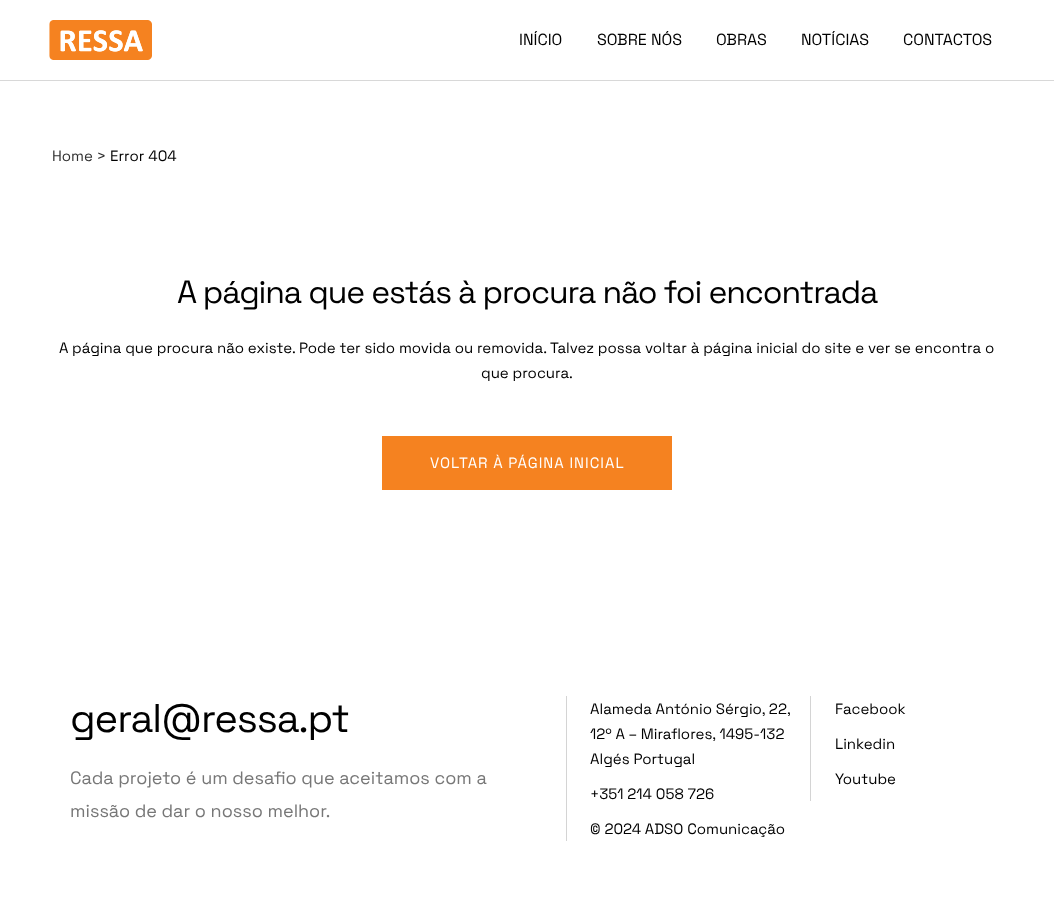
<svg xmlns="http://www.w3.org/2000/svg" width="1054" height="908">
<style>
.a{font:16px Space Grotesk;fill:#000}
.b{font:15px Space Grotesk;fill:#303030}
.c{font:15px Space Grotesk;fill:#000}
.d{font:32px Space Grotesk;letter-spacing:-1.1px;fill:#000}
.e{font:15px Space Grotesk;letter-spacing:1px;fill:#fff}
.f{font:40px Space Grotesk;letter-spacing:-1.1px;fill:#000}
.g{font:18px Space Grotesk;fill:#777}
</style>
<rect width="100%" height="100%" fill="#fff"/>
<path fill="#d8d8d8" d="M0 80h1054v1H0z"/>
<image href="1.png" x="49" y="20" width="103" height="40"/>
<path fill="#f58220" d="M382 436h290v54H382z"/>
<path fill="#d4d4d4" d="M566 696h1v145H566z"/>
<path fill="#d4d4d4" d="M810 696h1v105H810z"/>
<text class="a" x="519" y="45">INÍCIO</text>
<text class="a" x="597" y="45">SOBRE NÓS</text>
<text class="a" x="716" y="45">OBRAS</text>
<text class="a" x="801" y="45">NOTÍCIAS</text>
<text class="a" x="903" y="45">CONTACTOS</text>
<text class="b" x="52" y="161">Home &gt;</text>
<text class="c" x="110" y="161">Error 404</text>
<text class="d" x="177" y="303">A página que estás à procura não foi encontrada</text>
<text class="c" x="59" y="353">A página que procura não existe. Pode ter sido movida ou removida. Talvez possa voltar à página inicial do site e ver se encontra o</text>
<text class="c" x="481" y="378">que procura.</text>
<text class="e" x="430" y="468">VOLTAR À PÁGINA INICIAL</text>
<text class="f" x="70" y="732">geral@ressa.pt</text>
<text class="g" x="70" y="784">Cada projeto é um desafio que aceitamos com a</text>
<text class="g" x="70" y="817">missão de dar o nosso melhor.</text>
<text class="c" x="590" y="714">Alameda António Sérgio, 22,</text>
<text class="c" x="590" y="739">12º A – Miraflores, 1495-132</text>
<text class="c" x="590" y="764">Algés Portugal</text>
<text class="c" x="590" y="799">+351 214 058 726</text>
<text class="c" x="590" y="834">© 2024 ADSO Comunicação</text>
<text class="c" x="835" y="714">Facebook</text>
<text class="c" x="835" y="749">Linkedin</text>
<text class="c" x="835" y="784">Youtube</text>
</svg>
